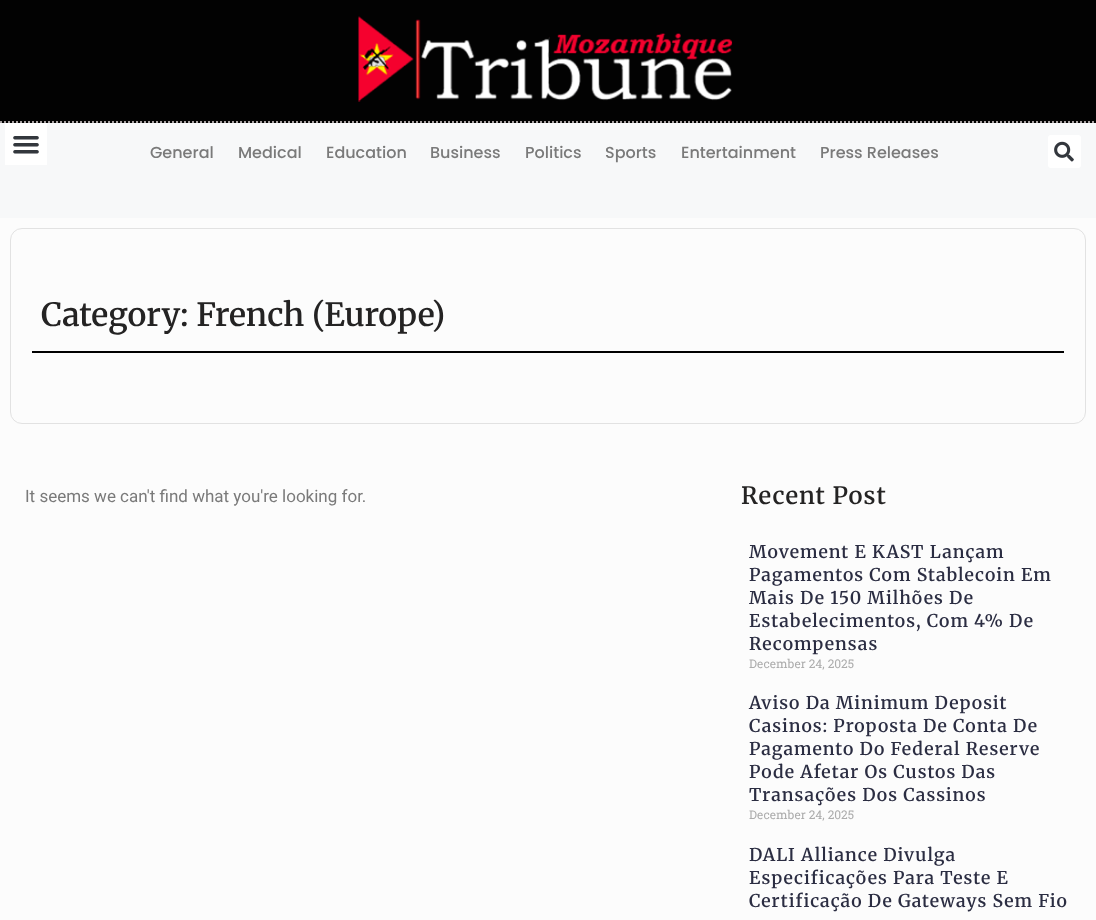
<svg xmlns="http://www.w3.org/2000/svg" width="1096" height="920">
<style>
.a{font:500 16px Poppins;fill:#7a7a7a}
.b{font:600 32px Merriweather;fill:#242323}
.c{font:17px Roboto;fill:#7a7a7a}
.d{font:600 23.75px Merriweather;letter-spacing:1px;fill:#242323}
.e{font:600 17.6px Merriweather;letter-spacing:1px;fill:#2b2d42}
.f{font:12px Roboto Slab;fill:#adadad}
</style>
<rect width="100%" height="100%" fill="#f7f8f9"/>
<path fill="#020202" d="M0 0h1096v123H0z"/>
<path fill="none" stroke="#a7a1a1" stroke-width="2" stroke-dasharray="2 2" d="M0 122h1096"/>
<image href="1.png" x="358" y="16" width="375" height="86"/>
<path fill="#fff" d="M5 123h42v42H5z"/>
<image href="2.png" x="13" y="136" width="26" height="18"/>
<rect fill="#fff" x="1048" y="135" width="33" height="33" rx="3"/>
<image href="3.png" x="1054" y="141" width="20" height="21"/>
<path fill="#fcfcfc" d="M0 218h1096v702H0z"/>
<rect fill="none" stroke="#e2e2e2" x="10.5" y="228.5" width="1075" height="195" rx="11.5"/>
<path fill="#000" d="M32 351h1032v2H32z"/>
<text class="a" x="150" y="158">General</text>
<text class="a" x="238" y="158">Medical</text>
<text class="a" x="326" y="158">Education</text>
<text class="a" x="430" y="158">Business</text>
<text class="a" x="525" y="158">Politics</text>
<text class="a" x="605" y="158">Sports</text>
<text class="a" x="681" y="158">Entertainment</text>
<text class="a" x="820" y="158">Press Releases</text>
<text class="b" x="41" y="326">Category: French (Europe)</text>
<text class="c" x="25" y="502">It seems we can't find what you're looking for.</text>
<text class="d" x="741" y="504">Recent Post</text>
<text class="e" x="749" y="558">Movement E KAST Lançam</text>
<text class="e" x="749" y="581">Pagamentos Com Stablecoin Em</text>
<text class="e" x="749" y="604">Mais De 150 Milhões De</text>
<text class="e" x="749" y="627">Estabelecimentos, Com 4% De</text>
<text class="e" x="749" y="650">Recompensas</text>
<text class="f" x="749" y="668">December 24, 2025</text>
<text class="e" x="749" y="709">Aviso Da Minimum Deposit</text>
<text class="e" x="749" y="732">Casinos: Proposta De Conta De</text>
<text class="e" x="749" y="755">Pagamento Do Federal Reserve</text>
<text class="e" x="749" y="778">Pode Afetar Os Custos Das</text>
<text class="e" x="749" y="801">Transações Dos Cassinos</text>
<text class="f" x="749" y="819">December 24, 2025</text>
<text class="e" x="749" y="861">DALI Alliance Divulga</text>
<text class="e" x="749" y="884">Especificações Para Teste E</text>
<text class="e" x="749" y="907">Certificação De Gateways Sem Fio</text>
</svg>
